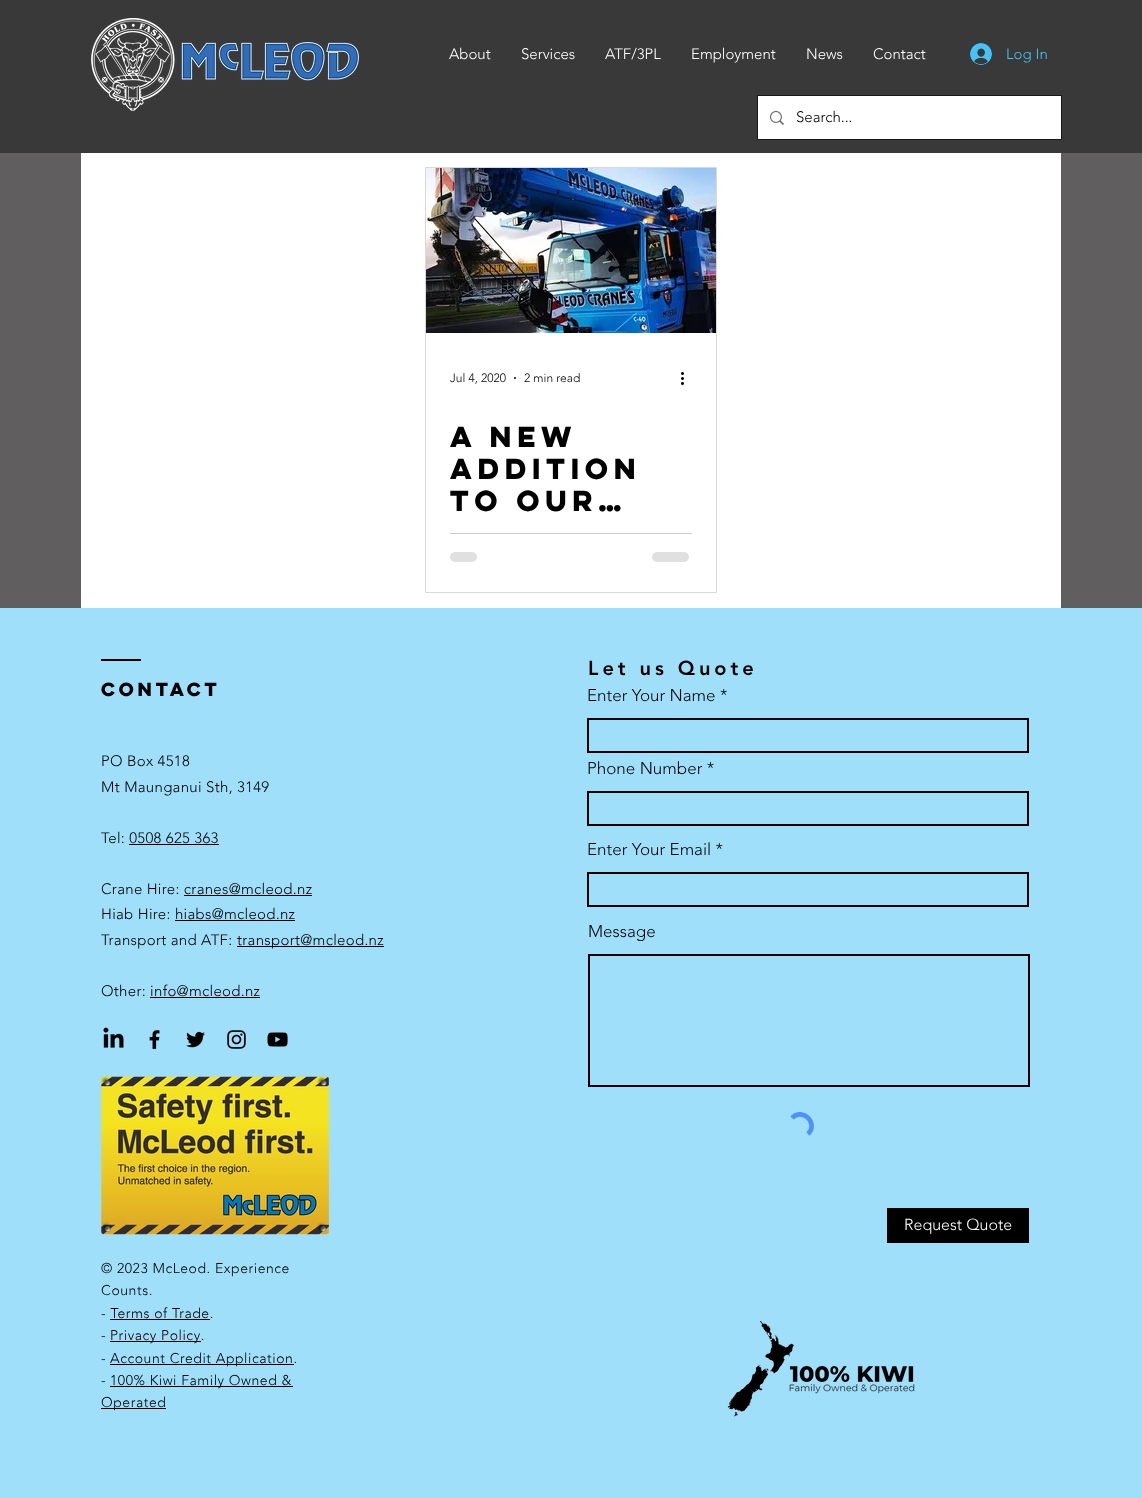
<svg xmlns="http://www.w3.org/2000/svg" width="1142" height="1498">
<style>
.a{font:300 15px 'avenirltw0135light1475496';fill:#fff}
.b{font:300 15px 'avenirltw0135light1475496';fill:#46c2f7}
.c{font:300 15px 'avenirltw0135light1475496';fill:#000}
.d{font:300 12px 'avenirltw0135light1475496';fill:#000}
.e{font:bold 26px 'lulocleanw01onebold';fill:#000}
.f{font:900 20px 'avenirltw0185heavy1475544';letter-spacing:4px;fill:#000}
.g{font:300 17px 'avenirltw0135light1475496';fill:#000}
.h{font:300 16px 'avenirltw0135light1475496';fill:#fff}
.i{font:bold 17px 'lulocleanw01onebold';fill:#000}
.j{font:300 15px 'avenirltw0135light1475496';letter-spacing:0.3px;fill:#000}
.k{font:300 14px 'avenirltw0135light1475496';letter-spacing:0.55px;fill:#000}
</style>
<rect width="100%" height="100%" fill="#605e5e"/>
<path fill="#383938" d="M0 0h1142v153H0z"/>
<image href="1.png" x="91" y="18" width="268" height="93"/>
<image href="2.png" x="970" y="43" width="22" height="22"/>
<path fill="none" stroke="#161716" d="M757.5 95.5h304v44H757.5z"/>
<path fill="#fff" d="M758 96h303v43H758z"/>
<image href="3.png" x="770" y="111" width="14" height="14"/>
<path fill="#fff" d="M81 153h980v455H81z"/>
<path fill="none" stroke="#d9d9d9" d="M425.5 167.5h291v425H425.5z"/>
<image href="4.png" x="426" y="168" width="290" height="165"/>
<circle fill="#000" cx="515" cy="378" r="1"/>
<image href="5.png" x="681" y="372" width="3" height="13"/>
<path fill="#ccc" d="M450 533h242v1H450z"/>
<rect fill="#e0e0e0" x="450" y="552" width="27" height="10" rx="5"/>
<rect fill="#e0e0e0" x="652" y="552" width="37" height="10" rx="5"/>
<path fill="#a0dffa" d="M0 608h1142v890H0z"/>
<path fill="#000" d="M101 659h40v2H101z"/>
<path fill="none" stroke="#000" stroke-width="2" d="M588 719h440v33H588z"/>
<path fill="none" stroke="#000" stroke-width="2" d="M588 792h440v33H588z"/>
<path fill="none" stroke="#000" stroke-width="2" d="M588 873h440v33H588z"/>
<path fill="none" stroke="#000" stroke-width="2" d="M589 955h440v131H589z"/>
<path fill="none" stroke="#4d90fe" stroke-width="4.6" d="M792 1118c10.5-11 27 5.5 16 16"/>
<path fill="#000" d="M887 1208h142v35H887z"/>
<image href="6.png" x="727" y="1321" width="188" height="96"/>
<path fill="#000" d="M129 844h90v1H129z"/>
<path fill="#000" d="M184 895h128v1H184z"/>
<path fill="#000" d="M175 920h120v1H175z"/>
<path fill="#000" d="M237 946h147v1H237z"/>
<path fill="#000" d="M150 997h110v1H150z"/>
<image href="7.png" x="103" y="1027" width="21" height="21"/>
<image href="8.png" x="149" y="1030" width="11" height="20"/>
<image href="9.png" x="186" y="1031" width="19" height="17"/>
<image href="10.png" x="227" y="1030" width="19" height="19"/>
<image href="11.png" x="267" y="1032" width="21" height="15"/>
<image href="12.png" x="101" y="1076" width="228" height="159"/>
<path fill="#000" d="M110 1319h100v1H110z"/>
<path fill="#000" d="M110 1341h91v1H110z"/>
<path fill="#000" d="M110 1364h184v1H110z"/>
<path fill="#000" d="M110 1386h183v1H110z"/>
<path fill="#000" d="M101 1408h65v1H101z"/>
<text class="a" x="449" y="59">About</text>
<text class="a" x="521" y="59">Services</text>
<text class="a" x="605" y="59">ATF/3PL</text>
<text class="a" x="691" y="59">Employment</text>
<text class="a" x="806" y="59">News</text>
<text class="a" x="873" y="59">Contact</text>
<text class="b" x="1006" y="59">Log In</text>
<text class="c" x="796" y="122">Search...</text>
<text class="d" x="450" y="382">Jul 4, 2020</text>
<text class="d" x="524" y="382">2 min read</text>
<text class="e" x="450" y="447">A New</text>
<text class="e" x="450" y="479">Addition</text>
<text class="e" x="450" y="511">to Our…</text>
<text class="f" x="588" y="675">Let us Quote</text>
<text class="g" x="587" y="701">Enter Your Name *</text>
<text class="g" x="587" y="774">Phone Number *</text>
<text class="g" x="587" y="855">Enter Your Email *</text>
<text class="g" x="588" y="937">Message</text>
<text class="h" x="904" y="1230">Request Quote</text>
<text class="i" x="101" y="696">Contact</text>
<text class="j" x="101" y="766">PO Box 4518</text>
<text class="j" x="101" y="792">Mt Maunganui Sth, 3149</text>
<text class="j" x="101" y="843">Tel: 0508 625 363</text>
<text class="j" x="101" y="894">Crane Hire: cranes@mcleod.nz</text>
<text class="j" x="101" y="919">Hiab Hire: hiabs@mcleod.nz</text>
<text class="j" x="101" y="945">Transport and ATF:</text>
<text class="j" x="237" y="945">transport@mcleod.nz</text>
<text class="j" x="101" y="996">Other: info@mcleod.nz</text>
<text class="k" x="101" y="1273">© 2023 McLeod. Experience</text>
<text class="k" x="101" y="1295">Counts.</text>
<text class="k" x="101" y="1318">- Terms of Trade.</text>
<text class="k" x="101" y="1340">-</text>
<text class="k" x="110" y="1340">Privacy Policy.</text>
<text class="k" x="101" y="1363">-</text>
<text class="k" x="110" y="1363">Account Credit Application.</text>
<text class="k" x="101" y="1385">-</text>
<text class="k" x="110" y="1385">100% Kiwi Family Owned &amp;</text>
<text class="k" x="101" y="1407">Operated</text>
</svg>
